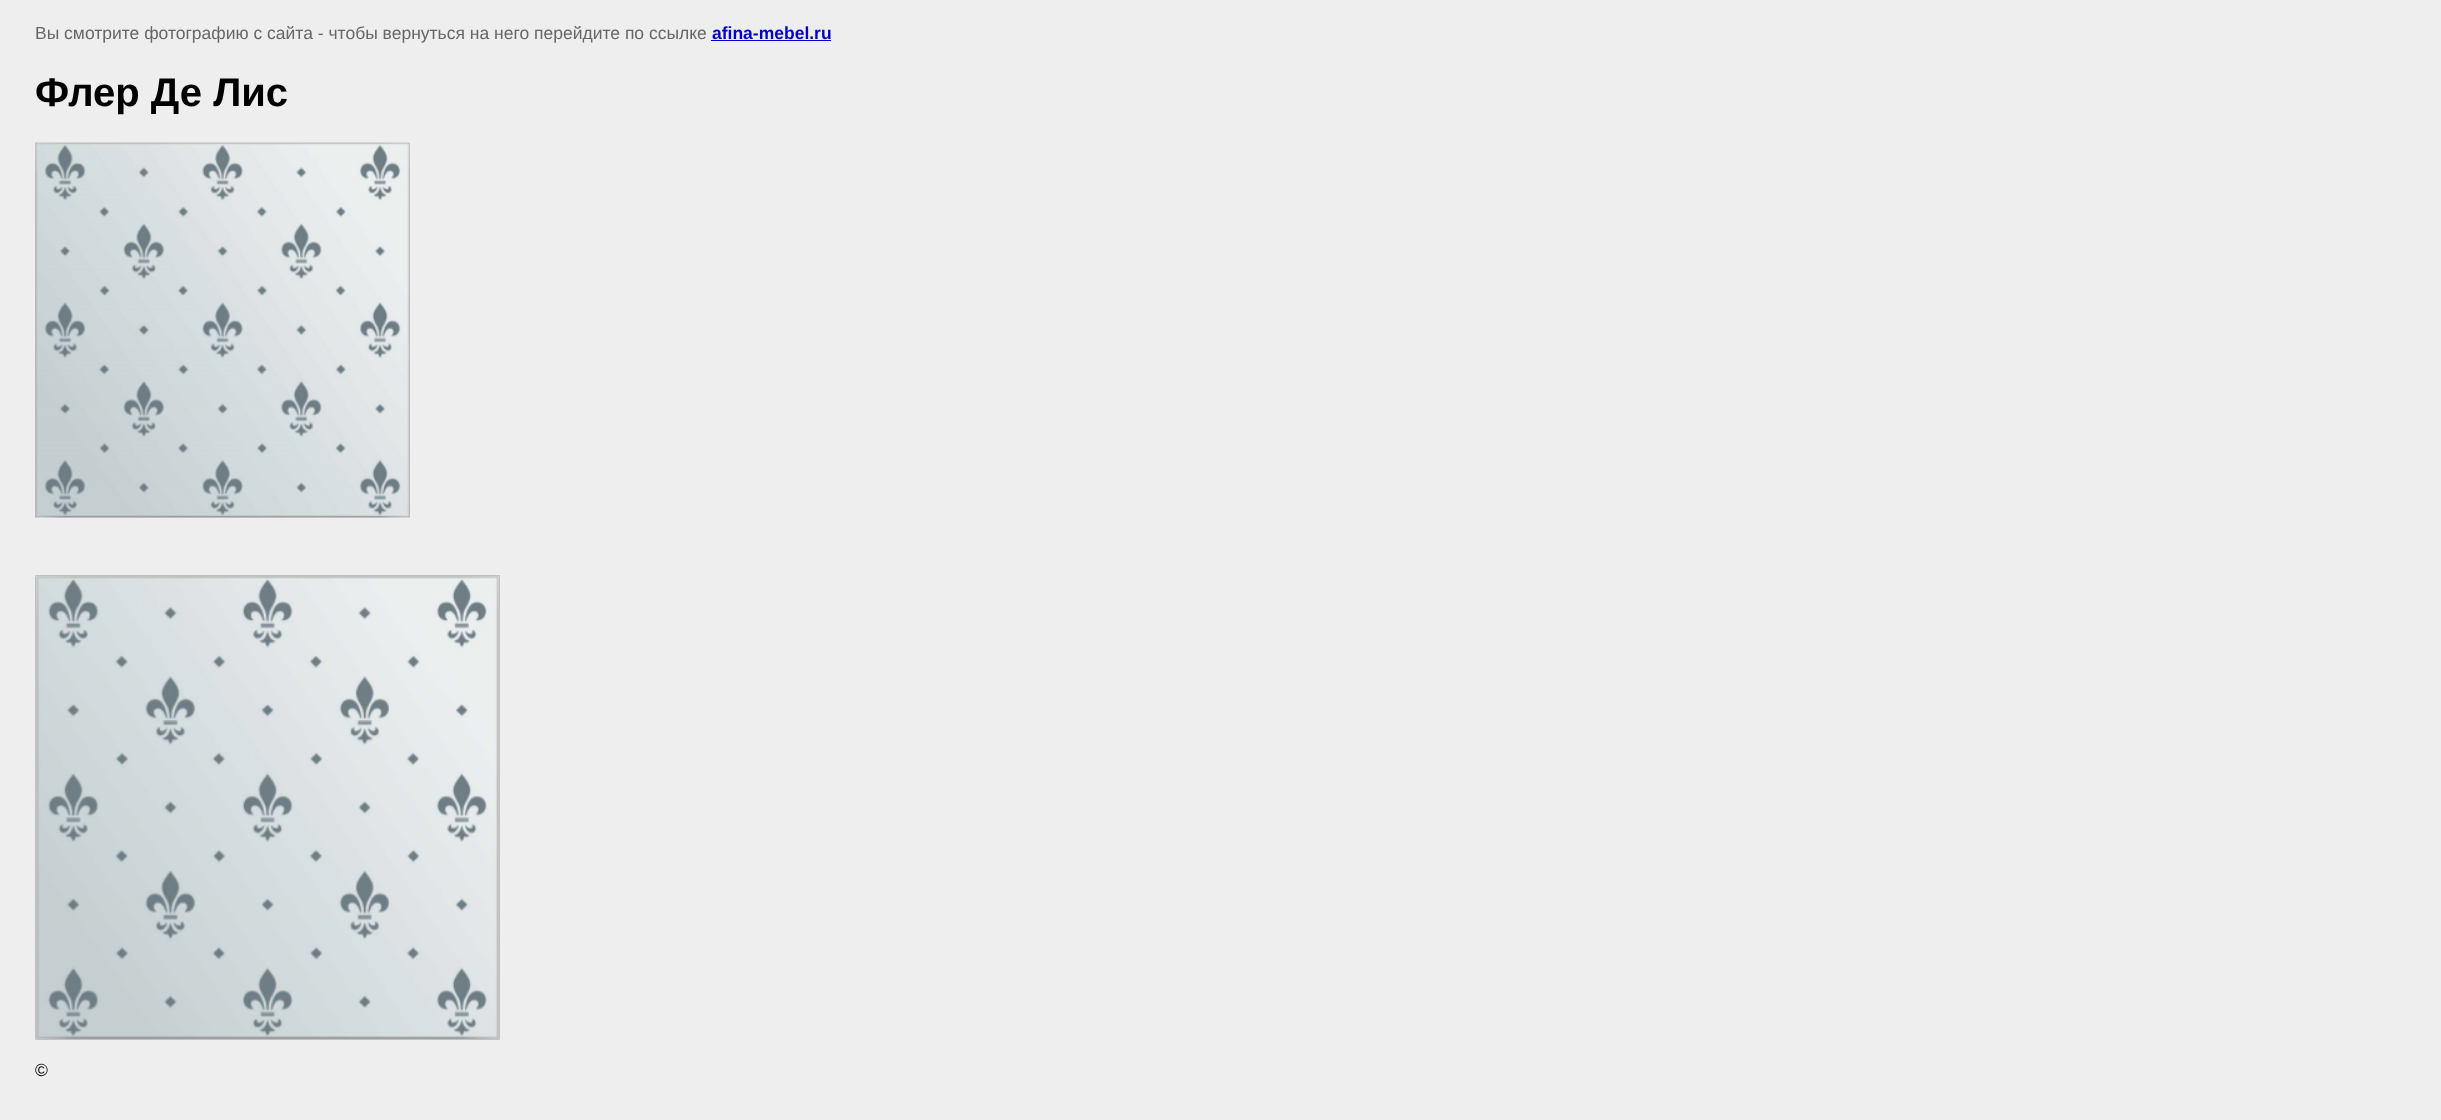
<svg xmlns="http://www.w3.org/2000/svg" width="2441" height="1120">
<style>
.a{font:17.5px Liberation Sans;fill:#666}
.b{font:bold 17.5px Liberation Sans;fill:#00c}
.c{font:bold 40px Liberation Sans;fill:#000}
.d{font:17.5px Liberation Sans;fill:#000}
</style>
<rect width="100%" height="100%" fill="#eee"/>
<path fill="#00c" d="M711 40h120v1H711z"/>
<image href="1.png" x="35" y="142" width="375" height="376"/>
<path fill="none" stroke="#c0c0c0" d="M35.5 575.5h464v464H35.5z"/>
<image href="2.png" x="36" y="576" width="463" height="463"/>
<text class="a" x="35" y="39">Вы смотрите фотографию с сайта - чтобы вернуться на него перейдите по ссылке</text>
<text class="b" x="712" y="39">afina-mebel.ru</text>
<text class="c" x="35" y="106">Флер Де Лис</text>
<text class="d" x="35" y="1076">©</text>
</svg>
